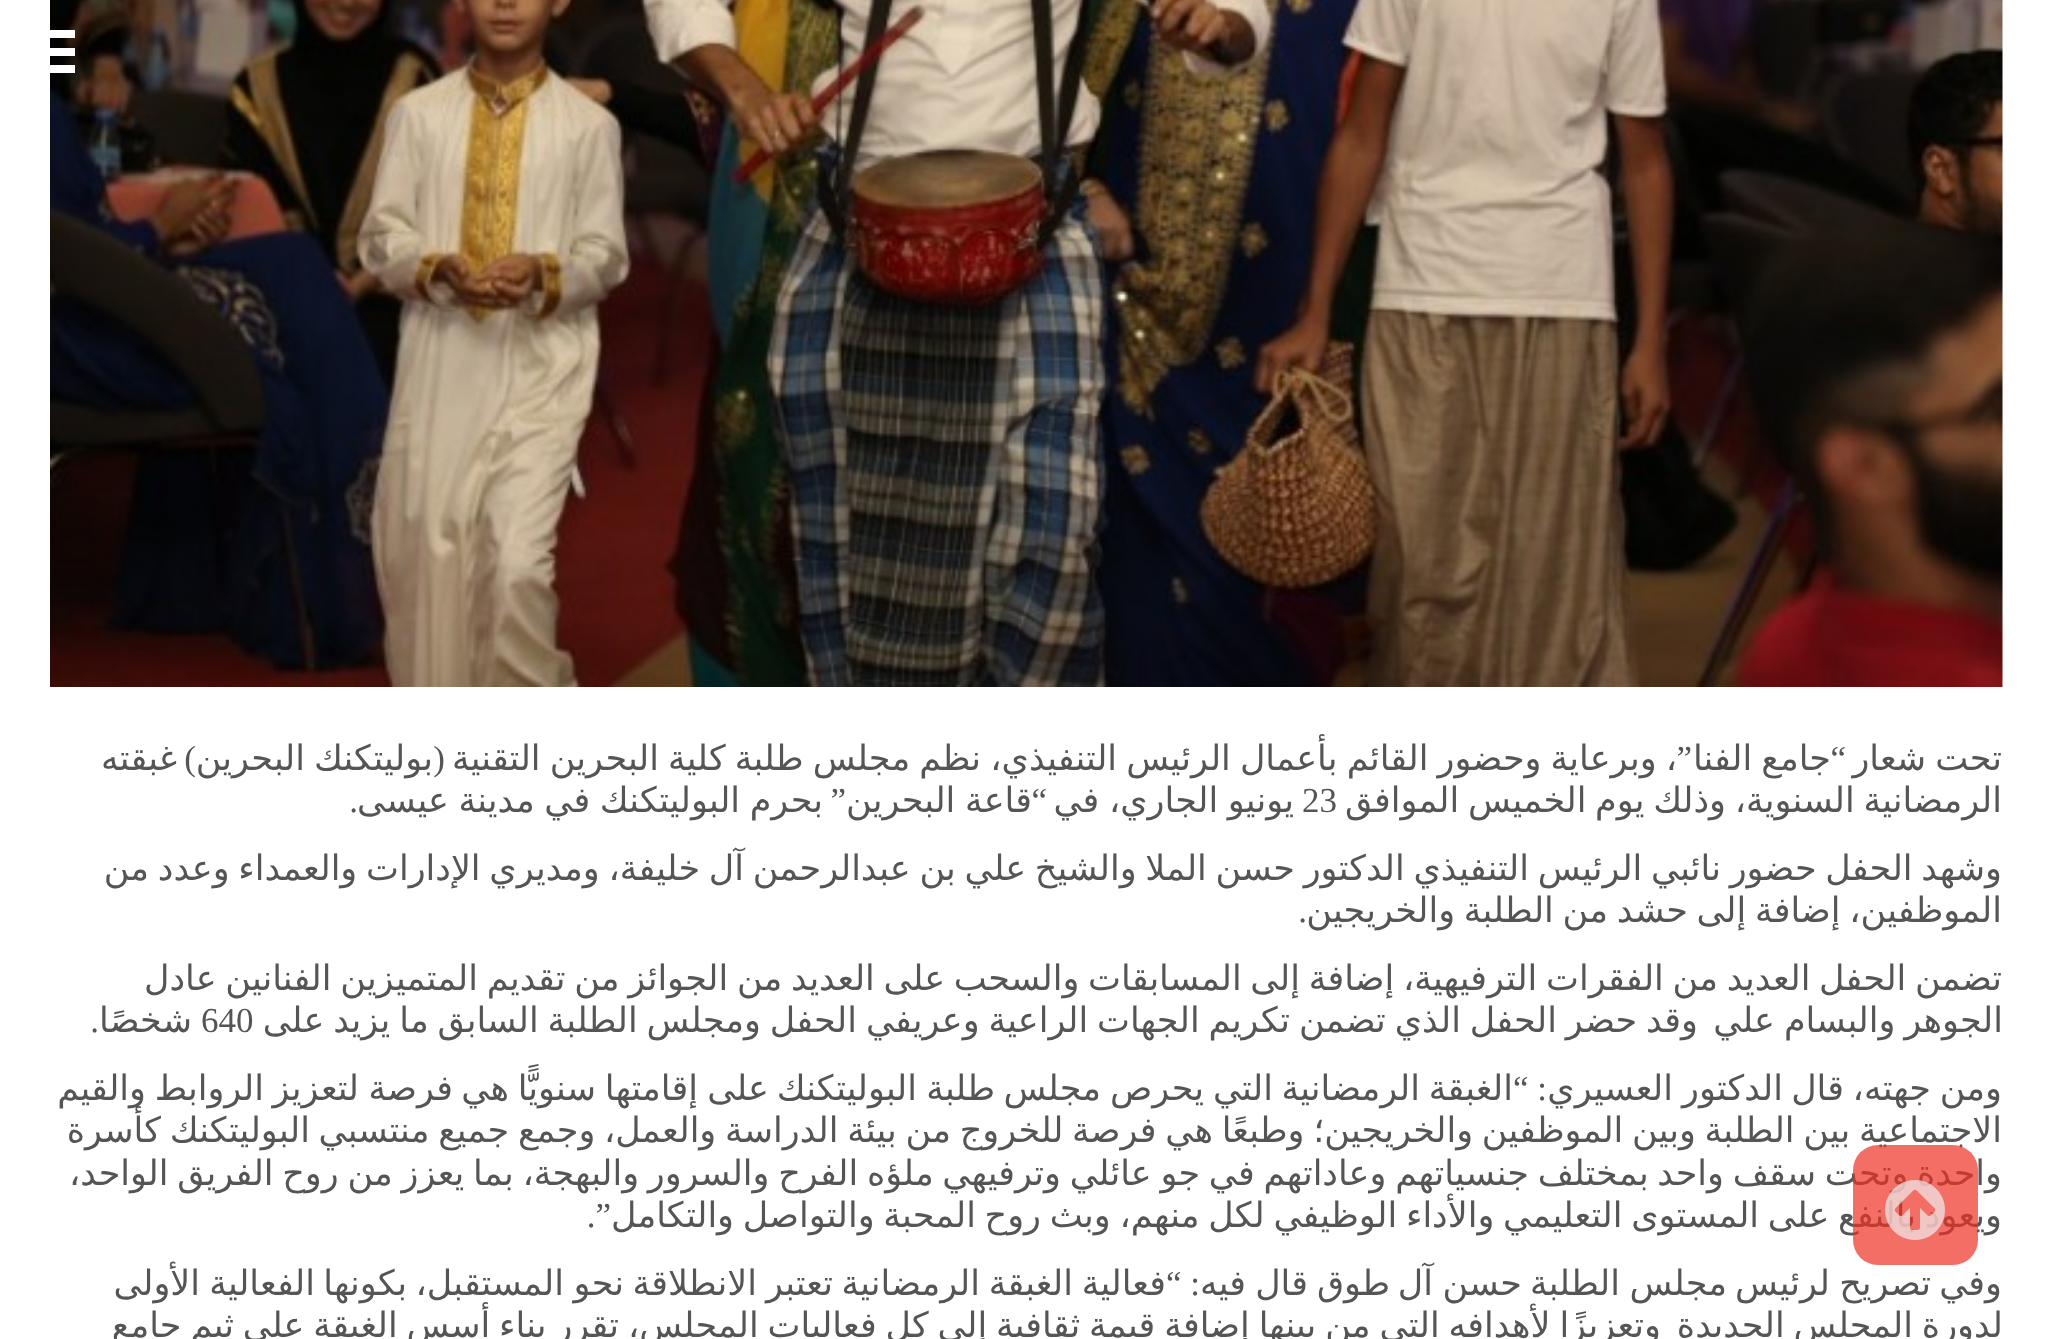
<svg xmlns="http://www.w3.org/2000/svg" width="2052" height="1339">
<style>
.a{font:35px DejaVu Sans;direction:rtl;fill:#565556}
.b{font:35px Liberation Serif;direction:rtl;fill:#565556}
.c{font:35px Liberation Serif;fill:#565556}
</style>
<rect width="100%" height="100%" fill="#fff"/>
<image href="1.png" x="50" y="0" width="1953" height="687"/>
<path fill="#fff" d="M50 30h25v8H50z"/>
<path fill="#fff" d="M50 48h25v8H50z"/>
<path fill="#fff" d="M50 65h25v8H50z"/>
<text class="a" x="2002" y="770" word-spacing="-2">تحت شعار</text>
<text class="b" x="1846" y="770">“</text>
<text class="a" x="1831" y="770" word-spacing="-2">جامع الفنا</text>
<text class="b" x="1692" y="770">”</text>
<text class="a" x="1677" y="770" word-spacing="-2">، وبرعاية وحضور القائم بأعمال الرئيس التنفيذي، نظم مجلس طلبة كلية البحرين التقنية</text>
<text class="b" x="445" y="770">(</text>
<text class="a" x="433" y="770" word-spacing="-2">بوليتكنك البحرين</text>
<text class="b" x="196" y="770">)</text>
<text class="a" x="177" y="770">غبقته</text>
<text class="a" x="2002" y="812" word-spacing="-2.4">الرمضانية السنوية، وذلك يوم الخميس الموافق</text>
<text class="c" x="1302" y="812">23</text>
<text class="a" x="1294" y="812" word-spacing="-1.5">يونيو الجاري، في</text>
<text class="b" x="1047" y="812">“</text>
<text class="a" x="1032" y="812" word-spacing="-1.5">قاعة البحرين</text>
<text class="b" x="846" y="812">”</text>
<text class="a" x="823" y="812" word-spacing="-1.5">بحرم البوليتكنك في مدينة عيسى</text>
<text class="b" x="358" y="812">.</text>
<text class="a" x="2002" y="880" word-spacing="-2.4">وشهد الحفل حضور نائبي الرئيس التنفيذي الدكتور حسن الملا والشيخ علي بن عبدالرحمن آل خليفة، ومديري الإدارات والعمداء وعدد من</text>
<text class="a" x="2002" y="922" word-spacing="-2.4">الموظفين، إضافة إلى حشد من الطلبة والخريجين</text>
<text class="b" x="1307" y="922">.</text>
<text class="a" x="2002" y="990" word-spacing="-2.4">تضمن الحفل العديد من الفقرات الترفيهية، إضافة إلى المسابقات والسحب على العديد من الجوائز من تقديم المتميزين الفنانين عادل</text>
<text class="a" x="2003" y="1032" word-spacing="-2.25">الجوهر والبسام علي</text>
<text class="a" x="1698" y="1032" word-spacing="-2.25">وقد حضر الحفل الذي تضمن تكريم الجهات الراعية وعريفي الحفل ومجلس الطلبة السابق ما يزيد على</text>
<text class="c" x="201" y="1032">640</text>
<text class="a" x="192" y="1032">شخصًا</text>
<text class="b" x="99" y="1032">.</text>
<text class="a" x="2002" y="1100">ومن</text>
<text class="a" x="1931" y="1100">جهته،</text>
<text class="a" x="1844" y="1100">قال</text>
<text class="a" x="1783" y="1100">الدكتور</text>
<text class="a" x="1673" y="1100">العسيري</text>
<text class="b" x="1547" y="1100">: “</text>
<text class="a" x="1513" y="1100">الغبقة</text>
<text class="a" x="1420" y="1100">الرمضانية</text>
<text class="a" x="1273" y="1100">التي</text>
<text class="a" x="1204" y="1100">يحرص</text>
<text class="a" x="1101" y="1100">مجلس</text>
<text class="a" x="995" y="1100">طلبة</text>
<text class="a" x="917" y="1100">البوليتكنك</text>
<text class="a" x="769" y="1100">على</text>
<text class="a" x="698" y="1100">إقامتها</text>
<text class="a" x="596" y="1100">سنويًّا</text>
<text class="a" x="509" y="1100">هي</text>
<text class="a" x="453" y="1100">فرصة</text>
<text class="a" x="359" y="1100">لتعزيز</text>
<text class="a" x="264" y="1100">الروابط</text>
<text class="a" x="146" y="1100">والقيم</text>
<text class="a" x="2002" y="1142" word-spacing="-2.4">الاجتماعية بين الطلبة وبين الموظفين والخريجين؛ وطبعًا هي فرصة للخروج من بيئة الدراسة والعمل، وجمع جميع منتسبي البوليتكنك كأسرة</text>
<text class="a" x="2002" y="1185" word-spacing="-2.4">واحدة وتحت سقف واحد بمختلف جنسياتهم وعاداتهم في جو عائلي وترفيهي ملؤه الفرح والسرور والبهجة، بما يعزز من روح الفريق الواحد،</text>
<text class="a" x="2002" y="1227" word-spacing="-2.4">ويعود بالنفع على المستوى التعليمي والأداء الوظيفي لكل منهم، وبث روح المحبة والتواصل والتكامل</text>
<text class="b" x="611" y="1227">”.</text>
<text class="a" x="2002" y="1295">وفي</text>
<text class="a" x="1931" y="1295">تصريح</text>
<text class="a" x="1830" y="1295">لرئيس</text>
<text class="a" x="1727" y="1295">مجلس</text>
<text class="a" x="1620" y="1295">الطلبة</text>
<text class="a" x="1522" y="1295">حسن</text>
<text class="a" x="1433" y="1295">آل</text>
<text class="a" x="1390" y="1295">طوق</text>
<text class="a" x="1308" y="1295">قال</text>
<text class="a" x="1246" y="1295">فيه</text>
<text class="b" x="1200" y="1295">: “</text>
<text class="a" x="1166" y="1295">فعالية</text>
<text class="a" x="1073" y="1295">الغبقة</text>
<text class="a" x="980" y="1295">الرمضانية</text>
<text class="a" x="833" y="1295">تعتبر</text>
<text class="a" x="757" y="1295">الانطلاقة</text>
<text class="a" x="624" y="1295">نحو</text>
<text class="a" x="564" y="1295">المستقبل،</text>
<text class="a" x="407" y="1295">بكونها</text>
<text class="a" x="315" y="1295">الفعالية</text>
<text class="a" x="200" y="1295">الأولى</text>
<text class="a" x="2003" y="1337" word-spacing="-2.25">لدورة المجلس الجديدة</text>
<text class="a" x="1661" y="1337" word-spacing="-2.25">وتعزيزًا لأهدافه التي من بينها إضافة قيمة ثقافية إلى كل فعاليات المجلس، تقرر بناء أسس الغبقة على ثيم جامع</text>
<rect fill="#ee3124b3" x="1853" y="1145" width="125" height="120" rx="25"/>
<image href="2.png" x="1885" y="1180" width="60" height="60"/>
</svg>
